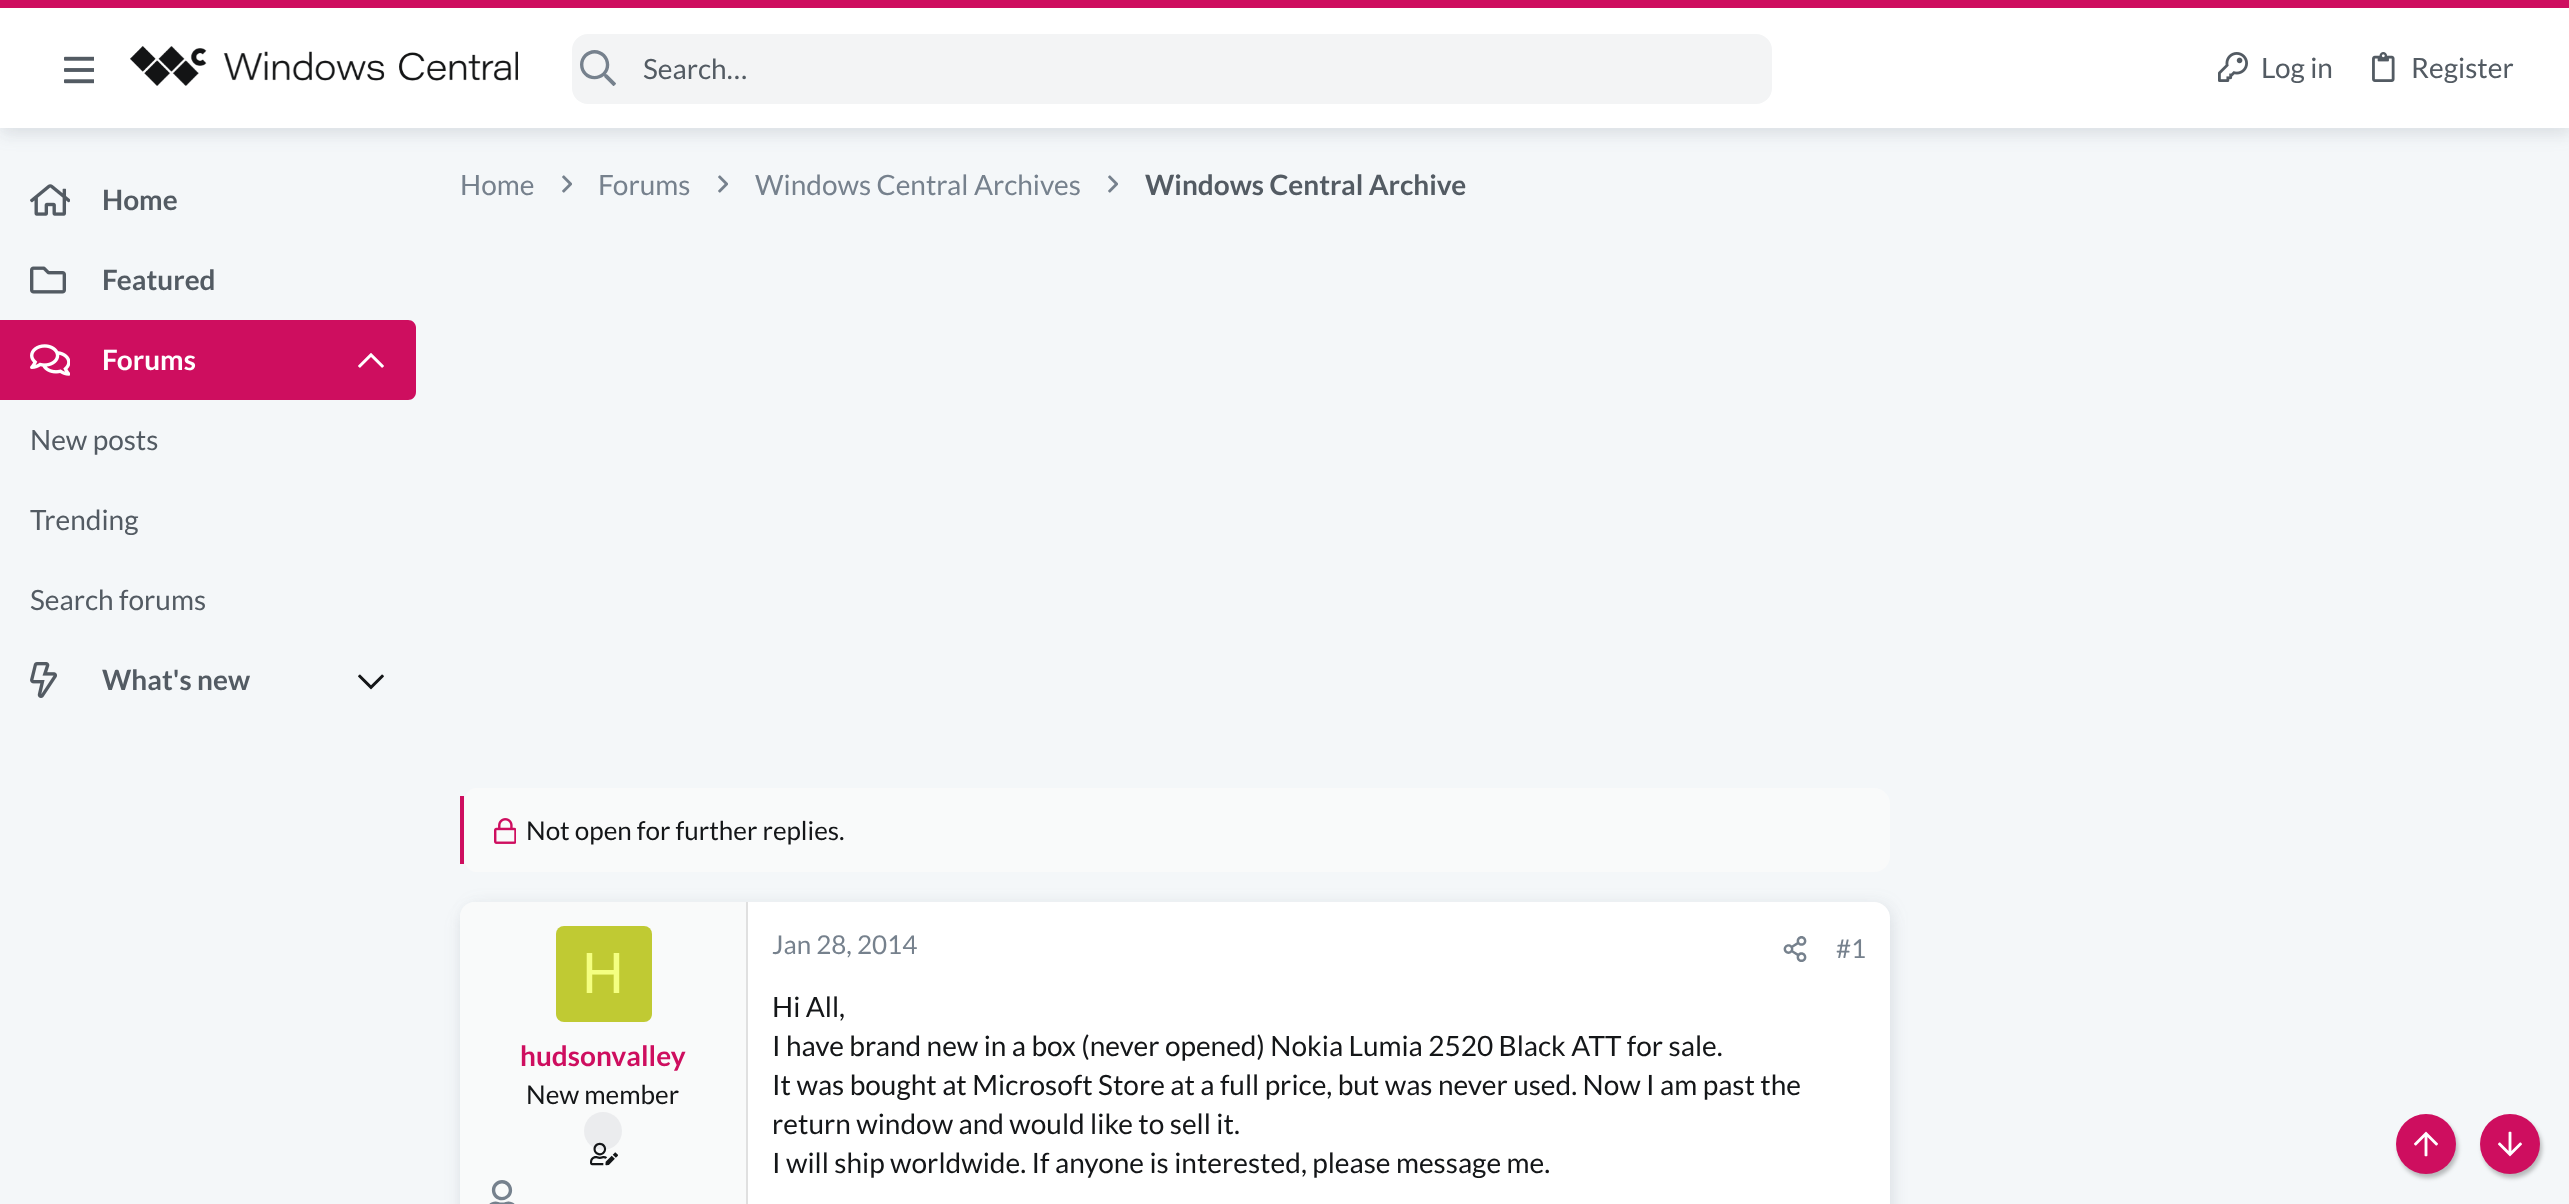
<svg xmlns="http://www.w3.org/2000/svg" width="2569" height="1204">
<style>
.a{font:28px Lato;fill:#535b63}
.b{font:bold 28px Lato;fill:#535b63}
.c{font:bold 28px Lato;fill:#fff}
.d{font:28px Lato;fill:#76818d}
.e{font:26px Lato;fill:#141618}
.f{font:58px Liberation Sans;fill:#f4ff81}
.g{font:bold 28px Lato;fill:#ce0e5f}
.h{font:26px Lato;fill:#76818d}
.i{font:28px Lato;fill:#141618}
</style>
<rect width="100%" height="100%" fill="#f4f7f9"/>
<path fill="#6b778014" filter="blur(8px)" d="M4 0h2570v128H4z"/>
<path fill="#6b77801f" filter="blur(8px)" d="M0 8h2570v128H0z"/>
<path fill="#fff" d="M0 8h2569v120H0z"/>
<path fill="#ce0e5f" d="M0 0h2569v8H0z"/>
<image href="1.png" x="64" y="56" width="30" height="28"/>
<image href="2.png" x="130" y="46" width="388" height="40"/>
<rect fill="#f3f4f5" x="572" y="34" width="1200" height="70" rx="16"/>
<image href="3.png" x="580" y="50" width="36" height="36"/>
<image href="4.png" x="2218" y="52" width="30" height="30"/>
<image href="5.png" x="2372" y="52" width="23" height="30"/>
<image href="6.png" x="30" y="184" width="40" height="32"/>
<image href="7.png" x="30" y="266" width="36" height="28"/>
<path fill="#ce0e5f" d="M0 320h408c4.5 0 8 3.5 8 8v64c0 4.5-3.5 8-8 8h-408z"/>
<image href="8.png" x="30" y="344" width="40" height="32"/>
<image href="9.png" x="358" y="353" width="26" height="15"/>
<image href="10.png" x="30" y="662" width="27" height="36"/>
<image href="11.png" x="358" y="674" width="26" height="16"/>
<image href="12.png" x="562" y="175" width="10" height="18"/>
<image href="12.png" x="718" y="175" width="10" height="18"/>
<image href="12.png" x="1108" y="175" width="10" height="18"/>
<path fill="#f9fafa" d="M476 788h1398c9 0 16 7 16 16v52c0 9-7 16-16 16h-1398c-7 0-12-7-12-16v-52c0-9 5-16 12-16z"/>
<path fill="#ce0e5f" d="M460 796h4v68H460z"/>
<image href="13.png" x="494" y="818" width="22" height="26"/>
<rect fill="#6b778014" filter="blur(8px)" x="464" y="902" width="1430" height="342" rx="16"/>
<rect fill="#6b77801f" filter="blur(8px)" x="460" y="910" width="1430" height="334" rx="16"/>
<rect fill="#fff" x="460" y="902" width="1430" height="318" rx="16"/>
<path fill="#f9fafa" d="M474 902h274v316h-274c-7.5 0-14-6.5-14-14v-288c0-7.5 6.5-14 14-14z"/>
<path fill="#e0e0e0" d="M746 902h2v302H746z"/>
<rect fill="#c0ca33" x="556" y="926" width="96" height="96" rx="8"/>
<circle fill="#ebecee" cx="603" cy="1131" r="19"/>
<image href="14.png" x="590" y="1142" width="28" height="24"/>
<image href="15.png" x="489" y="1180" width="26" height="24"/>
<image href="16.png" x="1783" y="936" width="24" height="26"/>
<rect fill="#00000040" filter="blur(2px)" x="2398" y="1118" width="60" height="60" rx="30"/>
<circle fill="#ce0e5f" cx="2426" cy="1144" r="30"/>
<image href="17.png" x="2414" y="1131" width="24" height="26"/>
<rect fill="#00000040" filter="blur(2px)" x="2482" y="1118" width="60" height="60" rx="30"/>
<circle fill="#ce0e5f" cx="2510" cy="1144" r="30"/>
<image href="18.png" x="2498" y="1131" width="24" height="26"/>
<text class="a" x="643" y="79">Search…</text>
<text class="a" x="2261" y="78">Log in</text>
<text class="a" x="2411" y="78">Register</text>
<text class="b" x="102" y="210">Home</text>
<text class="b" x="102" y="290">Featured</text>
<text class="c" x="102" y="370">Forums</text>
<text class="a" x="30" y="450">New posts</text>
<text class="a" x="30" y="530">Trending</text>
<text class="a" x="30" y="610">Search forums</text>
<text class="b" x="102" y="690">What's new</text>
<text class="d" x="460" y="195">Home</text>
<text class="d" x="598" y="195">Forums</text>
<text class="d" x="755" y="195">Windows Central Archives</text>
<text class="b" x="1145" y="195">Windows Central Archive</text>
<text class="e" x="526" y="840">Not open for further replies.</text>
<text class="f" x="582" y="993">H</text>
<text class="g" x="520" y="1066">hudsonvalley</text>
<text class="e" x="526" y="1104">New member</text>
<text class="h" x="772" y="954">Jan 28, 2014</text>
<text class="h" x="1836" y="958">#1</text>
<text class="i" x="772" y="1017">Hi All,</text>
<text class="i" x="772" y="1056">I have brand new in a box (never opened) Nokia Lumia 2520 Black ATT for sale.</text>
<text class="i" x="772" y="1095">It was bought at Microsoft Store at a full price, but was never used. Now I am past the</text>
<text class="i" x="772" y="1134">return window and would like to sell it.</text>
<text class="i" x="772" y="1173">I will ship worldwide. If anyone is interested, please message me.</text>
</svg>
